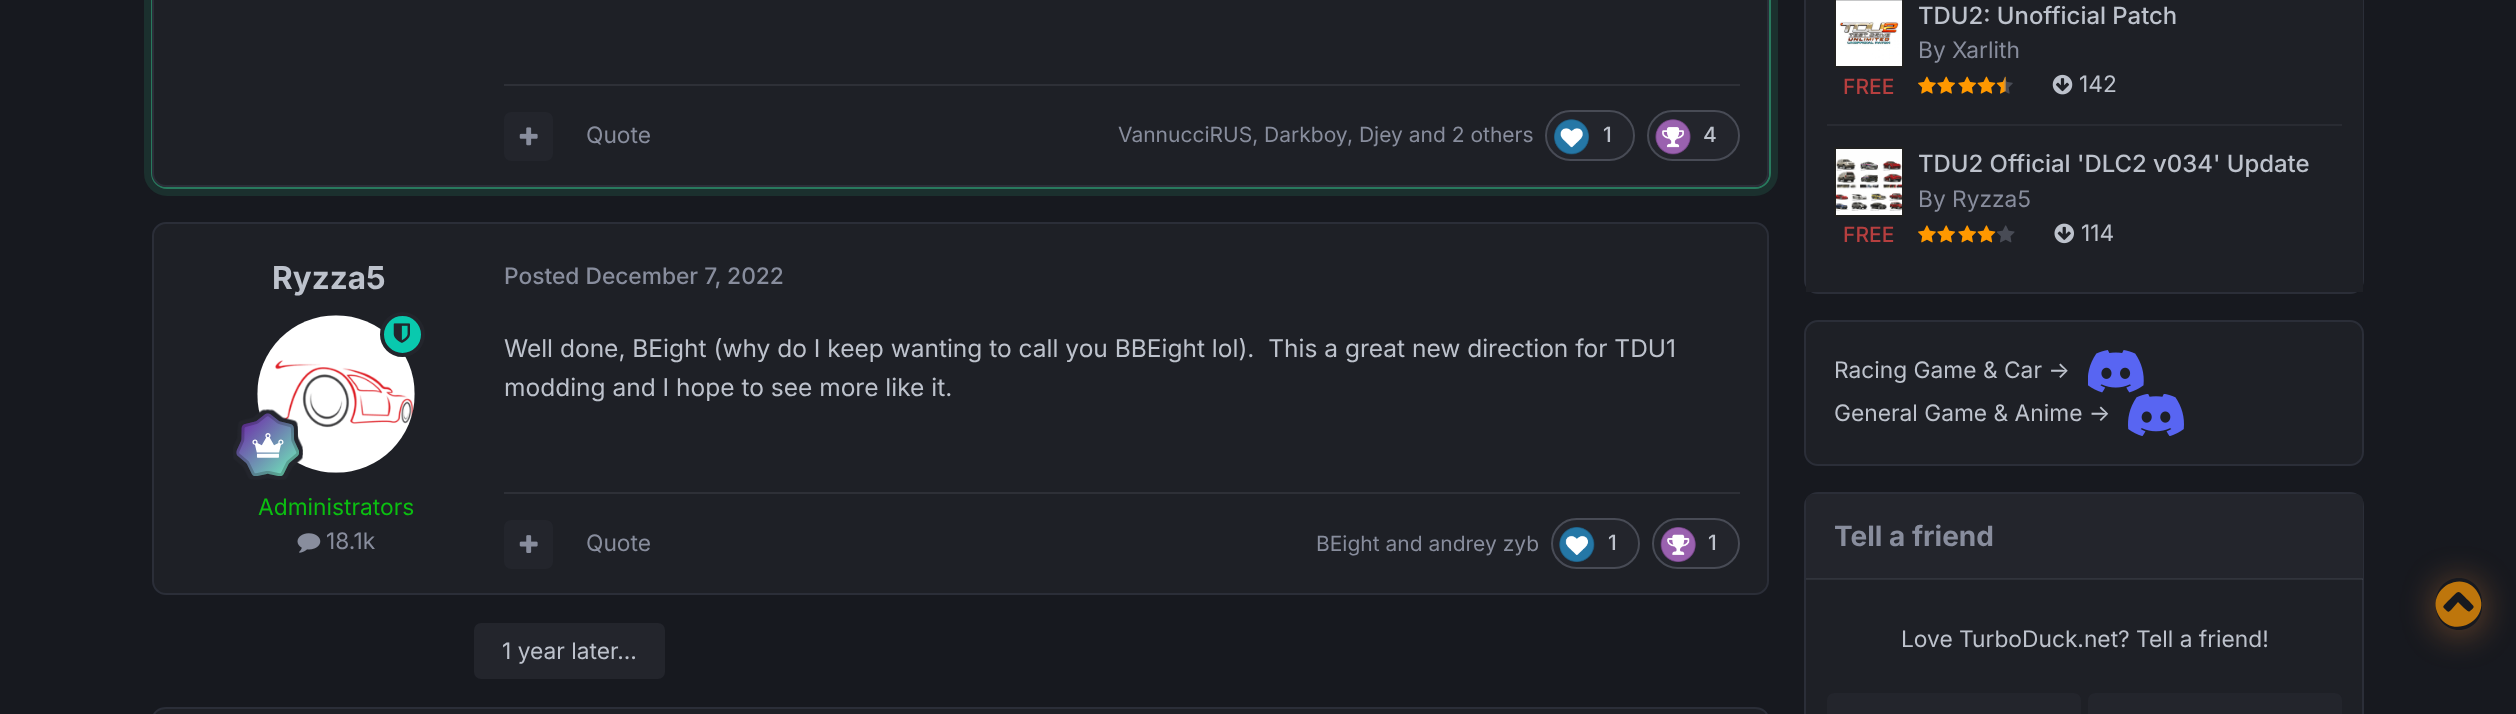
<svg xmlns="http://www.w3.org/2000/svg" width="2516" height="714">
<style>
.a{font:22.75px Inter;fill:#888d9d}
.b{font:21px Inter;fill:#888d9d}
.c{font:500 21px Inter;fill:#bdc2cc}
.d{font:bold 31.5px Inter;fill:#bdc2cc}
.e{font:22.75px Inter;fill:#0bbf11}
.f{font:500 22.75px Inter;fill:#888d9d}
.g{font:24.5px Inter;fill:#bdc2cc}
.h{font:22.75px Inter;fill:#bdc2cc}
.i{font:500 21px Inter;fill:#b63f3f}
.j{font:500 23.9px Inter;fill:#bdc2cc}
.k{font:bold 28px Inter;fill:#888d9d}
</style>
<defs>
<clipPath id="clip1"><path d="M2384 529h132v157h-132zm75 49c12.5 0 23 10.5 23 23v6c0 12.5-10.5 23-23 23c-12.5 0-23-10.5-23-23v-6c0-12.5 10.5-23 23-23z" clip-rule="evenodd"/></clipPath>
</defs>
<rect width="100%" height="100%" fill="#17191f"/>
<rect fill="none" stroke="#1b302e" stroke-width="9" x="148.5" y="-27.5" width="1625" height="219" rx="18.5"/>
<rect fill="none" stroke="#2c8c69cc" stroke-width="2" x="152" y="-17" width="1618" height="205" rx="15"/>
<rect fill="#1e2026" stroke="#2b2e38" stroke-width="2" x="153" y="-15" width="1615" height="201" rx="13"/>
<path fill="#2e3037" d="M504 84h1236v2H504z"/>
<rect fill="#23252c" x="504" y="112" width="49" height="49" rx="7"/>
<image href="1.png" x="519" y="127" width="19" height="19"/>
<rect fill="#23252c" x="1547" y="112" width="86" height="47" rx="23.5"/>
<rect fill="none" stroke="#888d9d66" stroke-width="2" x="1546" y="111" width="88" height="49" rx="24.5"/>
<image href="2.png" x="1554" y="119" width="35" height="36"/>
<rect fill="#23252c" x="1649" y="112" width="89" height="47" rx="23.5"/>
<rect fill="none" stroke="#888d9d66" stroke-width="2" x="1648" y="111" width="91" height="49" rx="24.5"/>
<image href="3.png" x="1655" y="119" width="36" height="36"/>
<rect fill="#1e2026" stroke="#2b2e38" stroke-width="2" x="153" y="223" width="1615" height="371" rx="13"/>
<circle fill="#23252c" cx="336" cy="394" r="79"/>
<image href="5.png" x="257" y="315" width="158" height="158"/>
<circle fill="#09c9ae" stroke="#23252c" stroke-width="4" cx="402.5" cy="334.5" r="20.5"/>
<image href="4.png" x="393" y="323" width="17" height="20"/>
<image href="6.png" x="233" y="409" width="70" height="71"/>
<image href="7.png" x="297" y="533" width="24" height="20"/>
<path fill="#2e3037" d="M504 492h1236v2H504z"/>
<rect fill="#23252c" x="504" y="520" width="49" height="49" rx="7"/>
<image href="8.png" x="519" y="535" width="19" height="18"/>
<rect fill="#23252c" x="1552" y="520" width="86" height="47" rx="23.5"/>
<rect fill="none" stroke="#888d9d66" stroke-width="2" x="1552" y="519" width="87" height="49" rx="24.5"/>
<image href="9.png" x="1559" y="527" width="36" height="35"/>
<rect fill="#23252c" x="1654" y="520" width="84" height="47" rx="23.5"/>
<rect fill="none" stroke="#888d9d66" stroke-width="2" x="1653" y="519" width="86" height="49" rx="24.5"/>
<image href="10.png" x="1660" y="527" width="36" height="35"/>
<rect fill="#23252c" x="474" y="623" width="191" height="56" rx="7"/>
<rect fill="#1e2026" stroke="#2b2e38" stroke-width="2" x="153" y="708" width="1615" height="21" rx="13"/>
<rect fill="none" stroke="#2b2e38" stroke-width="2" x="1805" y="-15" width="558" height="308" rx="13"/>
<path fill="#1e2026" d="M1806 0h557v292H1806z"/>
<path fill="#292b32" d="M1827 124h515v2H1827z"/>
<image href="11.png" x="1836" y="0" width="66" height="66"/>
<path fill="none" stroke="#212121" stroke-width="2" d="M1835 -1h68v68H1835z"/>
<image href="12.png" x="1918" y="76" width="18" height="18"/>
<image href="13.png" x="1937" y="76" width="19" height="18"/>
<image href="13.png" x="1958" y="76" width="19" height="18"/>
<image href="14.png" x="1977" y="76" width="19" height="18"/>
<image href="15.png" x="1996" y="76" width="10" height="18"/>
<image href="16.png" x="2003" y="76" width="10" height="18"/>
<image href="17.png" x="2052" y="74" width="21" height="21"/>
<image href="18.png" x="1836" y="149" width="66" height="66"/>
<path fill="none" stroke="#212121" stroke-width="2" d="M1835 148h68v68H1835z"/>
<image href="19.png" x="1918" y="225" width="18" height="18"/>
<image href="20.png" x="1937" y="225" width="19" height="18"/>
<image href="20.png" x="1958" y="225" width="19" height="18"/>
<image href="21.png" x="1977" y="225" width="19" height="18"/>
<image href="22.png" x="1997" y="225" width="18" height="18"/>
<image href="23.png" x="2054" y="223" width="20" height="21"/>
<rect fill="#1e2026" stroke="#2b2e38" stroke-width="2" x="1805" y="321" width="558" height="144" rx="13"/>
<image href="24.png" x="2088" y="350" width="56" height="43"/>
<image href="25.png" x="2128" y="394" width="56" height="42"/>
<rect fill="#1e2026" stroke="#2b2e38" stroke-width="2" x="1805" y="493" width="558" height="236" rx="13"/>
<path fill="#23252c" d="M1813 494h543c4 0 7 3 7 7v78h-557v-78c0-4 3-7 7-7z"/>
<path fill="#888d9d26" d="M1806 578h557v2H1806z"/>
<rect fill="#23252c" x="1827" y="693" width="254" height="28" rx="7"/>
<rect fill="#23252c" x="2088" y="693" width="254" height="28" rx="7"/>
<g clip-path="url(#clip1)">
<rect fill="#f891404d" filter="blur(16px)" x="2433" y="578" width="52" height="59" rx="26"/>
</g>
<path fill="#be760c" d="M2470 611c6-5 4-4-1-10c-13-12-8-12-21 0c-3 4-7 5-3 8c3 3 3 4 6 1l7-8l6 6c2 1 4 5 6 3zm8-18c15 25-24 48-39 23c-15-26 24-49 39-23z"/>
<text class="a" x="586" y="143">Quote</text>
<text class="b" x="1118" y="142">VannucciRUS, Darkboy</text>
<text class="b" x="1347" y="142">, Djey and 2 others</text>
<text class="c" x="1603" y="142">1</text>
<text class="c" x="1703" y="142">4</text>
<text class="d" x="272" y="289">Ryzza5</text>
<text class="e" x="258" y="515">Administrators</text>
<text class="a" x="326" y="549">18.1k</text>
<text class="f" x="504" y="284">Posted December 7, 2022</text>
<text class="g" xml:space="preserve" x="504" y="357">Well done, BEight (why do I keep wanting to call you BBEight lol).  This a great new direction for TDU1</text>
<text class="g" x="504" y="396">modding and I hope to see more like it.</text>
<text class="a" x="586" y="551">Quote</text>
<text class="b" x="1316" y="551">BEight and andrey zyb</text>
<text class="c" x="1608" y="550">1</text>
<text class="c" x="1708" y="550">1</text>
<text class="h" x="502" y="659">1 year later...</text>
<text class="i" x="1843" y="94">FREE</text>
<text class="j" x="1918" y="24">TDU2: Unofficial Patch</text>
<text class="a" x="1918" y="58">By Xarlith</text>
<text class="h" x="2079" y="92">142</text>
<text class="i" x="1843" y="242">FREE</text>
<text class="j" x="1918" y="172">TDU2 Official 'DLC2 v034' Update</text>
<text class="a" x="1918" y="207">By Ryzza5</text>
<text class="h" x="2081" y="241">114</text>
<text class="h" x="1834" y="378">Racing Game &amp; Car -&gt;</text>
<text class="h" x="1834" y="421">General Game &amp; Anime -&gt;</text>
<text class="k" x="1834" y="546">Tell a friend</text>
<text class="h" x="1901" y="647">Love TurboDuck.net? Tell a friend!</text>
</svg>
